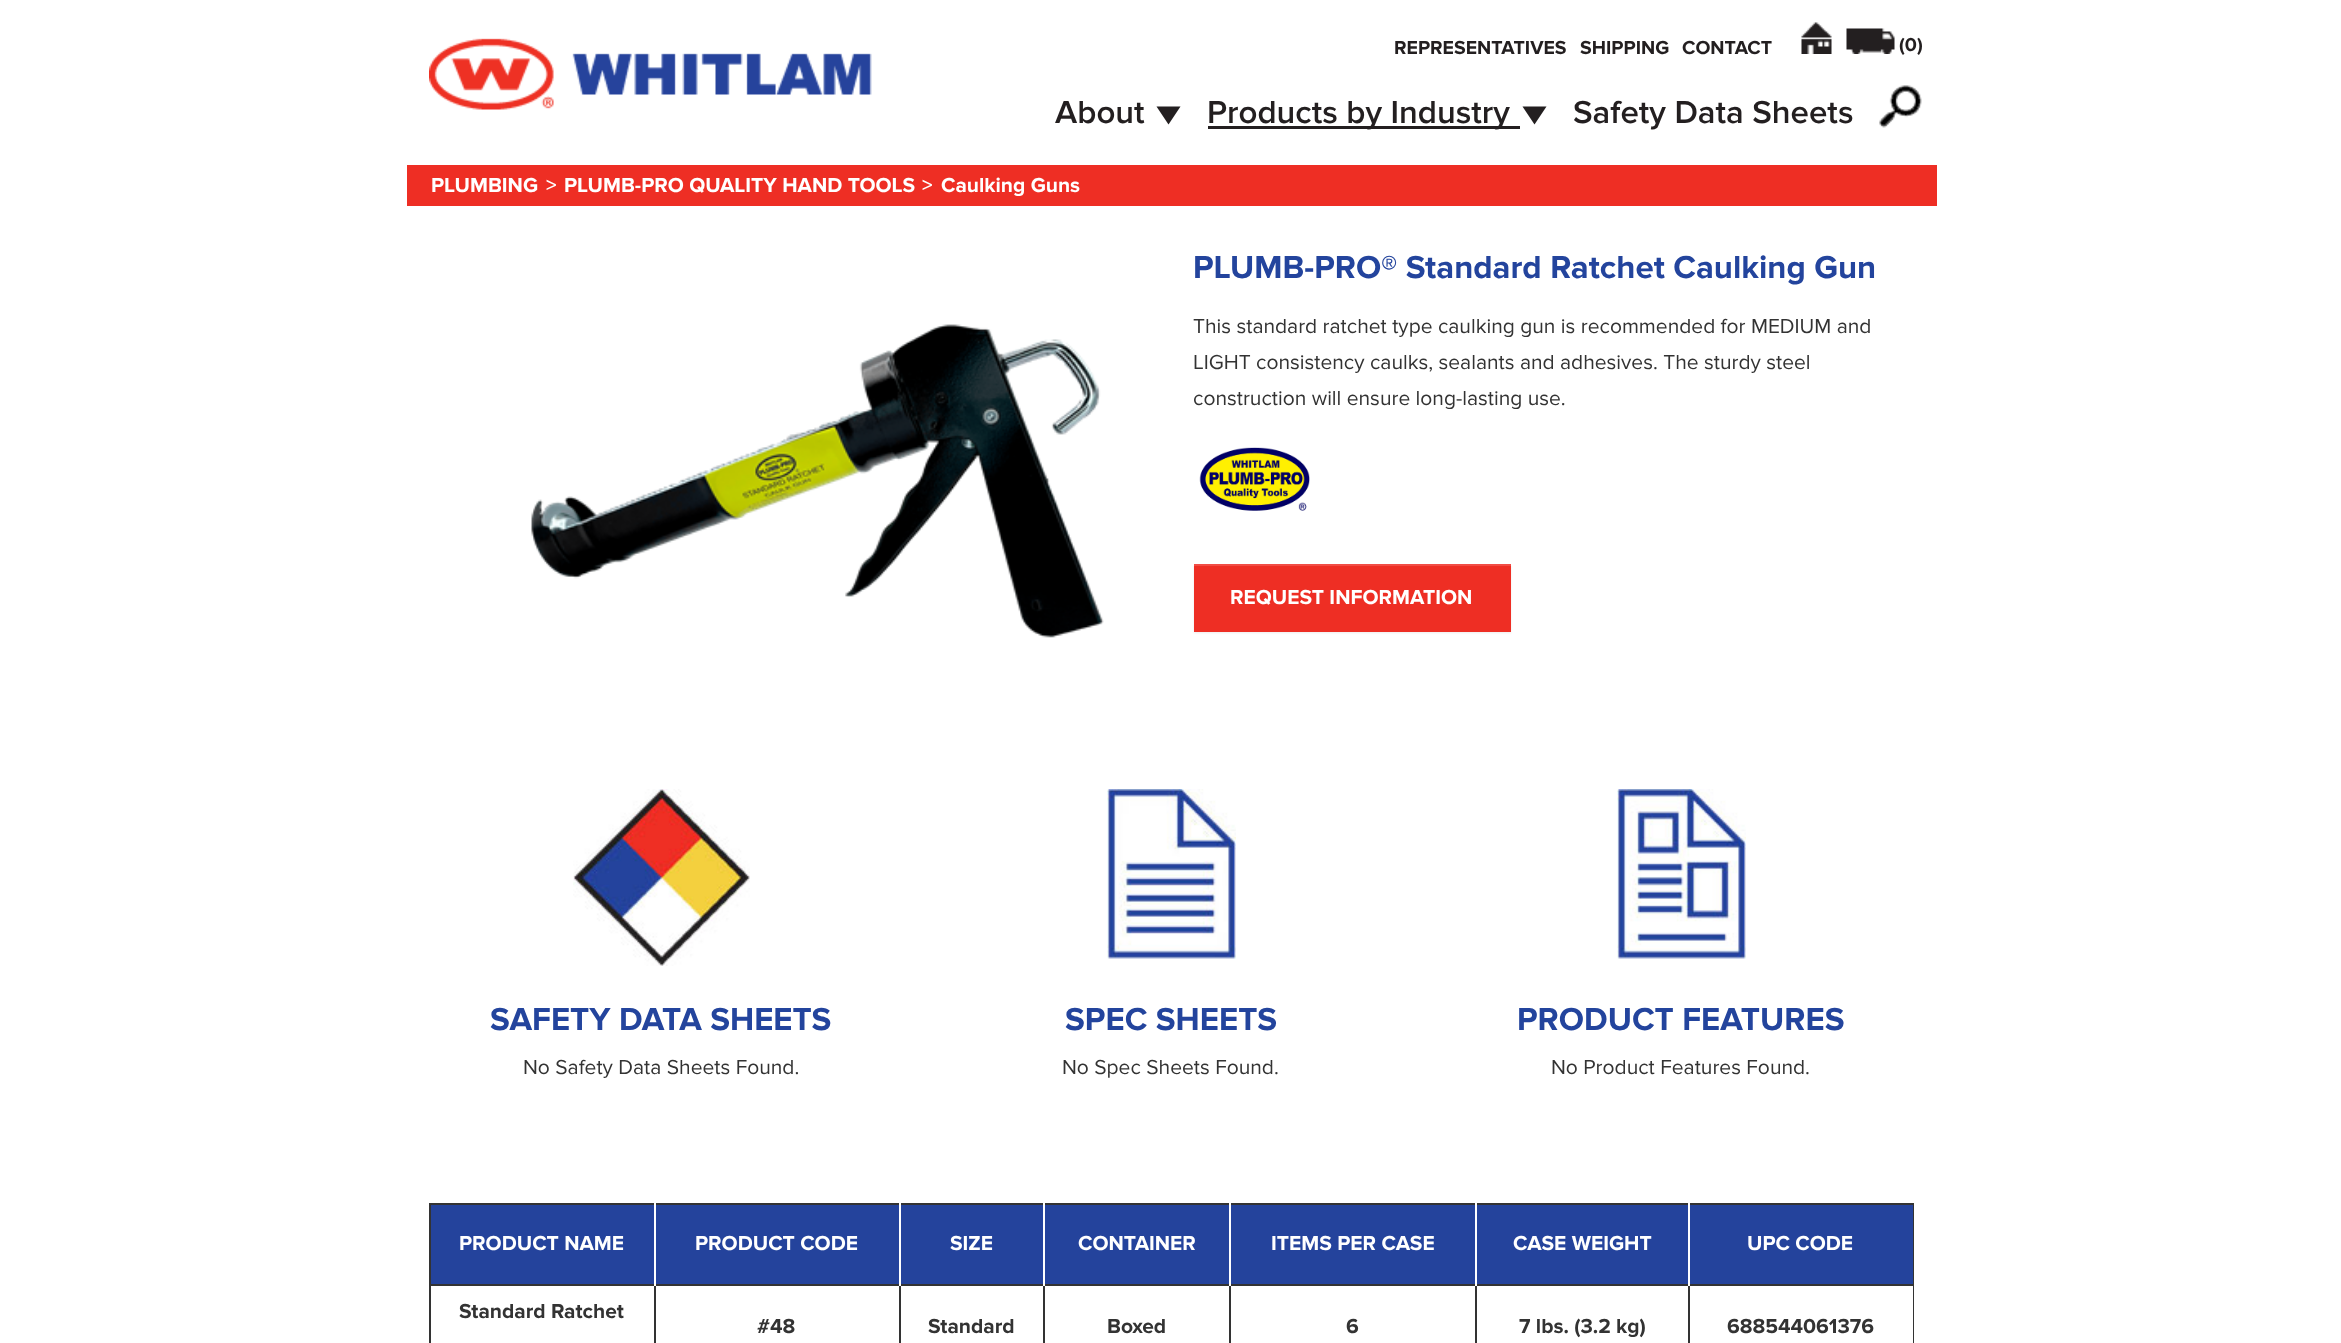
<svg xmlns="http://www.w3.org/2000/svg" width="2341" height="1343">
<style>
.a{font:bold 19.5px Proxima Nova;fill:#231f20}
.b{font:600 33px Proxima Nova;fill:#231f20}
.c{font:bold 21px Proxima Nova;fill:#fff}
.d{font:600 21px Proxima Nova;fill:#fff}
.e{font:bold 33px Proxima Nova;fill:#23449d}
.f{font:21px Proxima Nova;fill:#333}
.g{font:bold 21px Proxima Nova;fill:#333}
</style>
<rect width="100%" height="100%" fill="#fff"/>
<image href="1.png" x="429" y="38" width="443" height="72"/>
<image href="2.png" x="1801" y="22" width="31" height="32"/>
<image href="3.png" x="1846" y="28" width="49" height="26"/>
<path fill="#231f20" d="M1156.5 106.5h24l-12 18z"/>
<path fill="#231f20" d="M1208 126h312v3H1208z"/>
<path fill="#231f20" d="M1522.5 106.5h24l-12 18z"/>
<image href="4.png" x="1879" y="85" width="43" height="43"/>
<path fill="#ee2e24" d="M407 165h1530v41H407z"/>
<image href="5.png" x="531" y="324" width="573" height="314"/>
<image href="6.png" x="1199" y="447" width="111" height="64"/>
<path fill="#00000012" filter="blur(1px)" d="M1194 566h317v67H1194z"/>
<path fill="#ee2e24" d="M1194 566h317v66H1194z"/>
<path fill="#f14d45" d="M1194 564h317v2H1194z"/>
<image href="7.png" x="573" y="789" width="177" height="177"/>
<image href="8.png" x="1107" y="789" width="129" height="170"/>
<image href="9.png" x="1617" y="789" width="129" height="170"/>
<path fill="#333" d="M429 1203h1485v2H429z"/>
<path fill="#333" d="M1913 1203h1v140H1913z"/>
<path fill="#333" d="M429 1203h2v140H429z"/>
<path fill="#24439c" d="M431 1205h223v79H431z"/>
<path fill="#333" d="M1688 1284h226v2H1688z"/>
<path fill="#333" d="M1688 1284h2v59H1688z"/>
<path fill="#333" d="M1475 1284h214v2H1475z"/>
<path fill="#333" d="M1475 1284h2v59H1475z"/>
<path fill="#333" d="M1229 1284h247v2H1229z"/>
<path fill="#333" d="M1229 1284h2v59H1229z"/>
<path fill="#333" d="M1043 1284h187v2H1043z"/>
<path fill="#333" d="M1043 1284h2v59H1043z"/>
<path fill="#333" d="M899 1284h145v2H899z"/>
<path fill="#333" d="M899 1284h2v59H899z"/>
<path fill="#333" d="M654 1284h246v2H654z"/>
<path fill="#333" d="M654 1284h2v59H654z"/>
<path fill="#333" d="M429 1284h227v2H429z"/>
<path fill="#fff" d="M654 1203h2v83H654z"/>
<path fill="#24439c" d="M656 1205h243v79H656z"/>
<path fill="#fff" d="M899 1203h2v83H899z"/>
<path fill="#24439c" d="M901 1205h142v79H901z"/>
<path fill="#fff" d="M1043 1203h2v83H1043z"/>
<path fill="#24439c" d="M1045 1205h184v79H1045z"/>
<path fill="#fff" d="M1229 1203h2v83H1229z"/>
<path fill="#24439c" d="M1231 1205h244v79H1231z"/>
<path fill="#fff" d="M1475 1203h2v83H1475z"/>
<path fill="#24439c" d="M1477 1205h211v79H1477z"/>
<path fill="#fff" d="M1688 1203h2v83H1688z"/>
<path fill="#24439c" d="M1690 1205h223v79H1690z"/>
<text class="a" x="1394" y="54">REPRESENTATIVES</text>
<text class="a" x="1580" y="54">SHIPPING</text>
<text class="a" x="1682" y="54">CONTACT</text>
<text class="a" x="1899" y="51">(0)</text>
<text class="b" x="1055" y="123">About</text>
<text class="b" x="1207" y="123">Products by Industry</text>
<text class="b" x="1573" y="123">Safety Data Sheets</text>
<text class="c" x="431" y="192">PLUMBING</text>
<text class="d" x="546" y="192">&gt;</text>
<text class="c" x="564" y="192">PLUMB-PRO QUALITY HAND TOOLS</text>
<text class="d" x="922" y="192">&gt;</text>
<text class="c" x="941" y="192">Caulking Guns</text>
<text class="e" x="1193" y="278">PLUMB-PRO® Standard Ratchet Caulking Gun</text>
<text class="f" x="1193" y="333">This standard ratchet type caulking gun is recommended for MEDIUM and</text>
<text class="f" x="1193" y="369">LIGHT consistency caulks, sealants and adhesives. The sturdy steel</text>
<text class="f" x="1193" y="405">construction will ensure long-lasting use.</text>
<text class="c" x="1230" y="604">REQUEST INFORMATION</text>
<text class="e" x="490" y="1030">SAFETY DATA SHEETS</text>
<text class="f" x="523" y="1074">No Safety Data Sheets Found.</text>
<text class="e" x="1065" y="1030">SPEC SHEETS</text>
<text class="f" x="1062" y="1074">No Spec Sheets Found.</text>
<text class="e" x="1517" y="1030">PRODUCT FEATURES</text>
<text class="f" x="1551" y="1074">No Product Features Found.</text>
<text class="c" x="459" y="1250">PRODUCT NAME</text>
<text class="c" x="695" y="1250">PRODUCT CODE</text>
<text class="c" x="950" y="1250">SIZE</text>
<text class="c" x="1078" y="1250">CONTAINER</text>
<text class="c" x="1271" y="1250">ITEMS PER CASE</text>
<text class="c" x="1513" y="1250">CASE WEIGHT</text>
<text class="c" x="1747" y="1250">UPC CODE</text>
<text class="g" x="459" y="1318">Standard Ratchet</text>
<text class="g" x="757" y="1333">#48</text>
<text class="g" x="928" y="1333">Standard</text>
<text class="g" x="1107" y="1333">Boxed</text>
<text class="g" x="1346" y="1333">6</text>
<text class="g" x="1519" y="1333">7 lbs. (3.2 kg)</text>
<text class="g" x="1727" y="1333">688544061376</text>
</svg>
